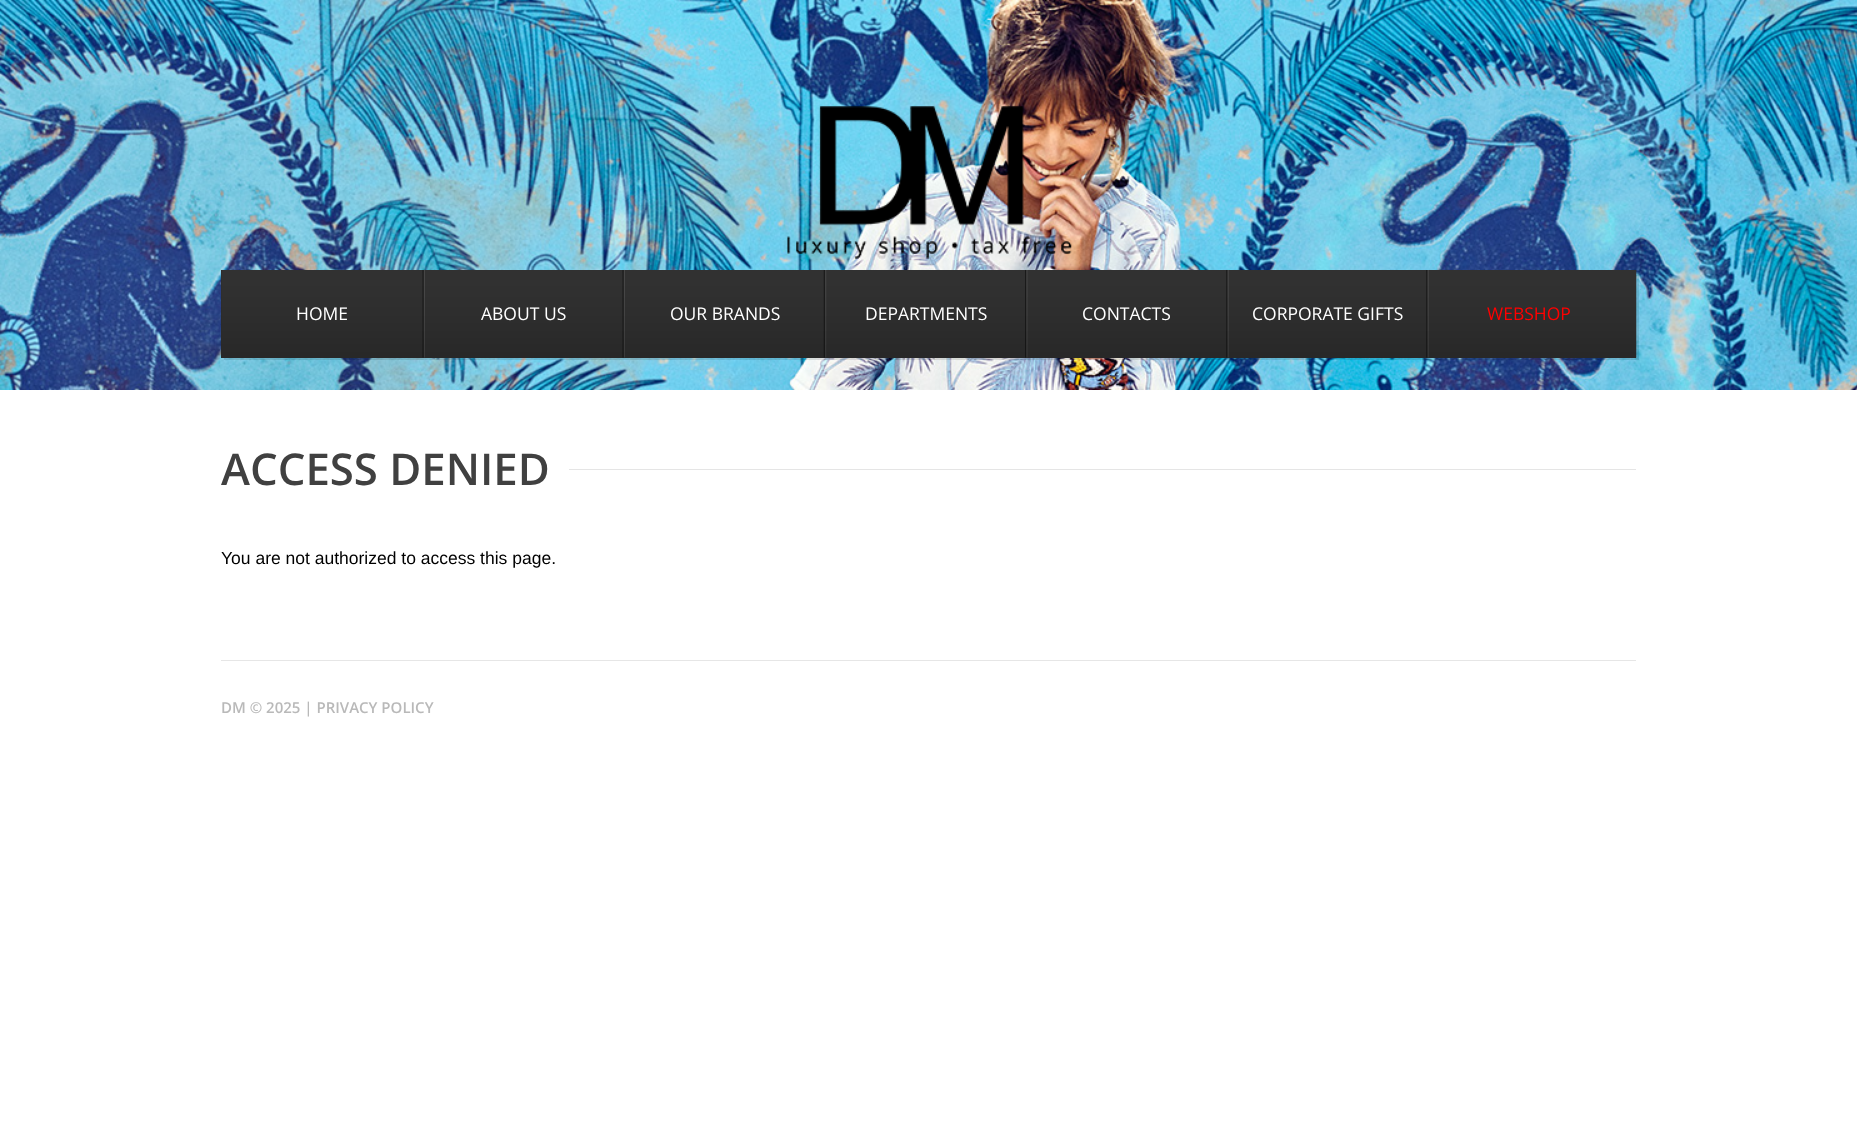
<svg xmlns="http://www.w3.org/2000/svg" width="1857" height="1125">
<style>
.a{font:17.5px Open Sans;fill:#fff}
.b{font:17.5px Open Sans;fill:#f00}
.c{font:600 43.75px Open Sans;fill:#404040}
.d{font:17.5px Liberation Sans;fill:#000}
.e{font:600 15px Open Sans;fill:#b9b9b9}
</style>
<rect width="100%" height="100%" fill="#fff"/>
<image href="1.png" x="0" y="0" width="1857" height="390"/>
<image href="2.png" x="787" y="106" width="285" height="153"/>
<path fill="#0000001a" d="M224 358v2h1415v-87h-3v85z"/>
<path fill="#282828" d="M221 270h1415v88H221z"/>
<image href="3.png" x="221" y="270" width="1416" height="88"/>
<image href="4.png" x="422" y="270" width="3" height="88"/>
<image href="4.png" x="622" y="270" width="3" height="88"/>
<image href="5.png" x="823" y="270" width="4" height="88"/>
<image href="6.png" x="1025" y="270" width="3" height="88"/>
<image href="7.png" x="1226" y="270" width="3" height="88"/>
<image href="7.png" x="1426" y="270" width="3" height="88"/>
<path fill="#e5e5e5" d="M569 469h1067v1H569z"/>
<path fill="#e6e6e6" d="M221 660h1415v1H221z"/>
<text class="a" x="296" y="320">HOME</text>
<text class="a" x="481" y="320">ABOUT US</text>
<text class="a" x="670" y="320">OUR BRANDS</text>
<text class="a" x="865" y="320">DEPARTMENTS</text>
<text class="a" x="1082" y="320">CONTACTS</text>
<text class="a" x="1252" y="320">CORPORATE GIFTS</text>
<text class="b" x="1487" y="320">WEBSHOP</text>
<text class="c" x="221" y="485">ACCESS DENIED</text>
<text class="d" x="221" y="564">You are not authorized to access this page.</text>
<text class="e" x="221" y="713">DM © 2025 | PRIVACY POLICY</text>
</svg>
